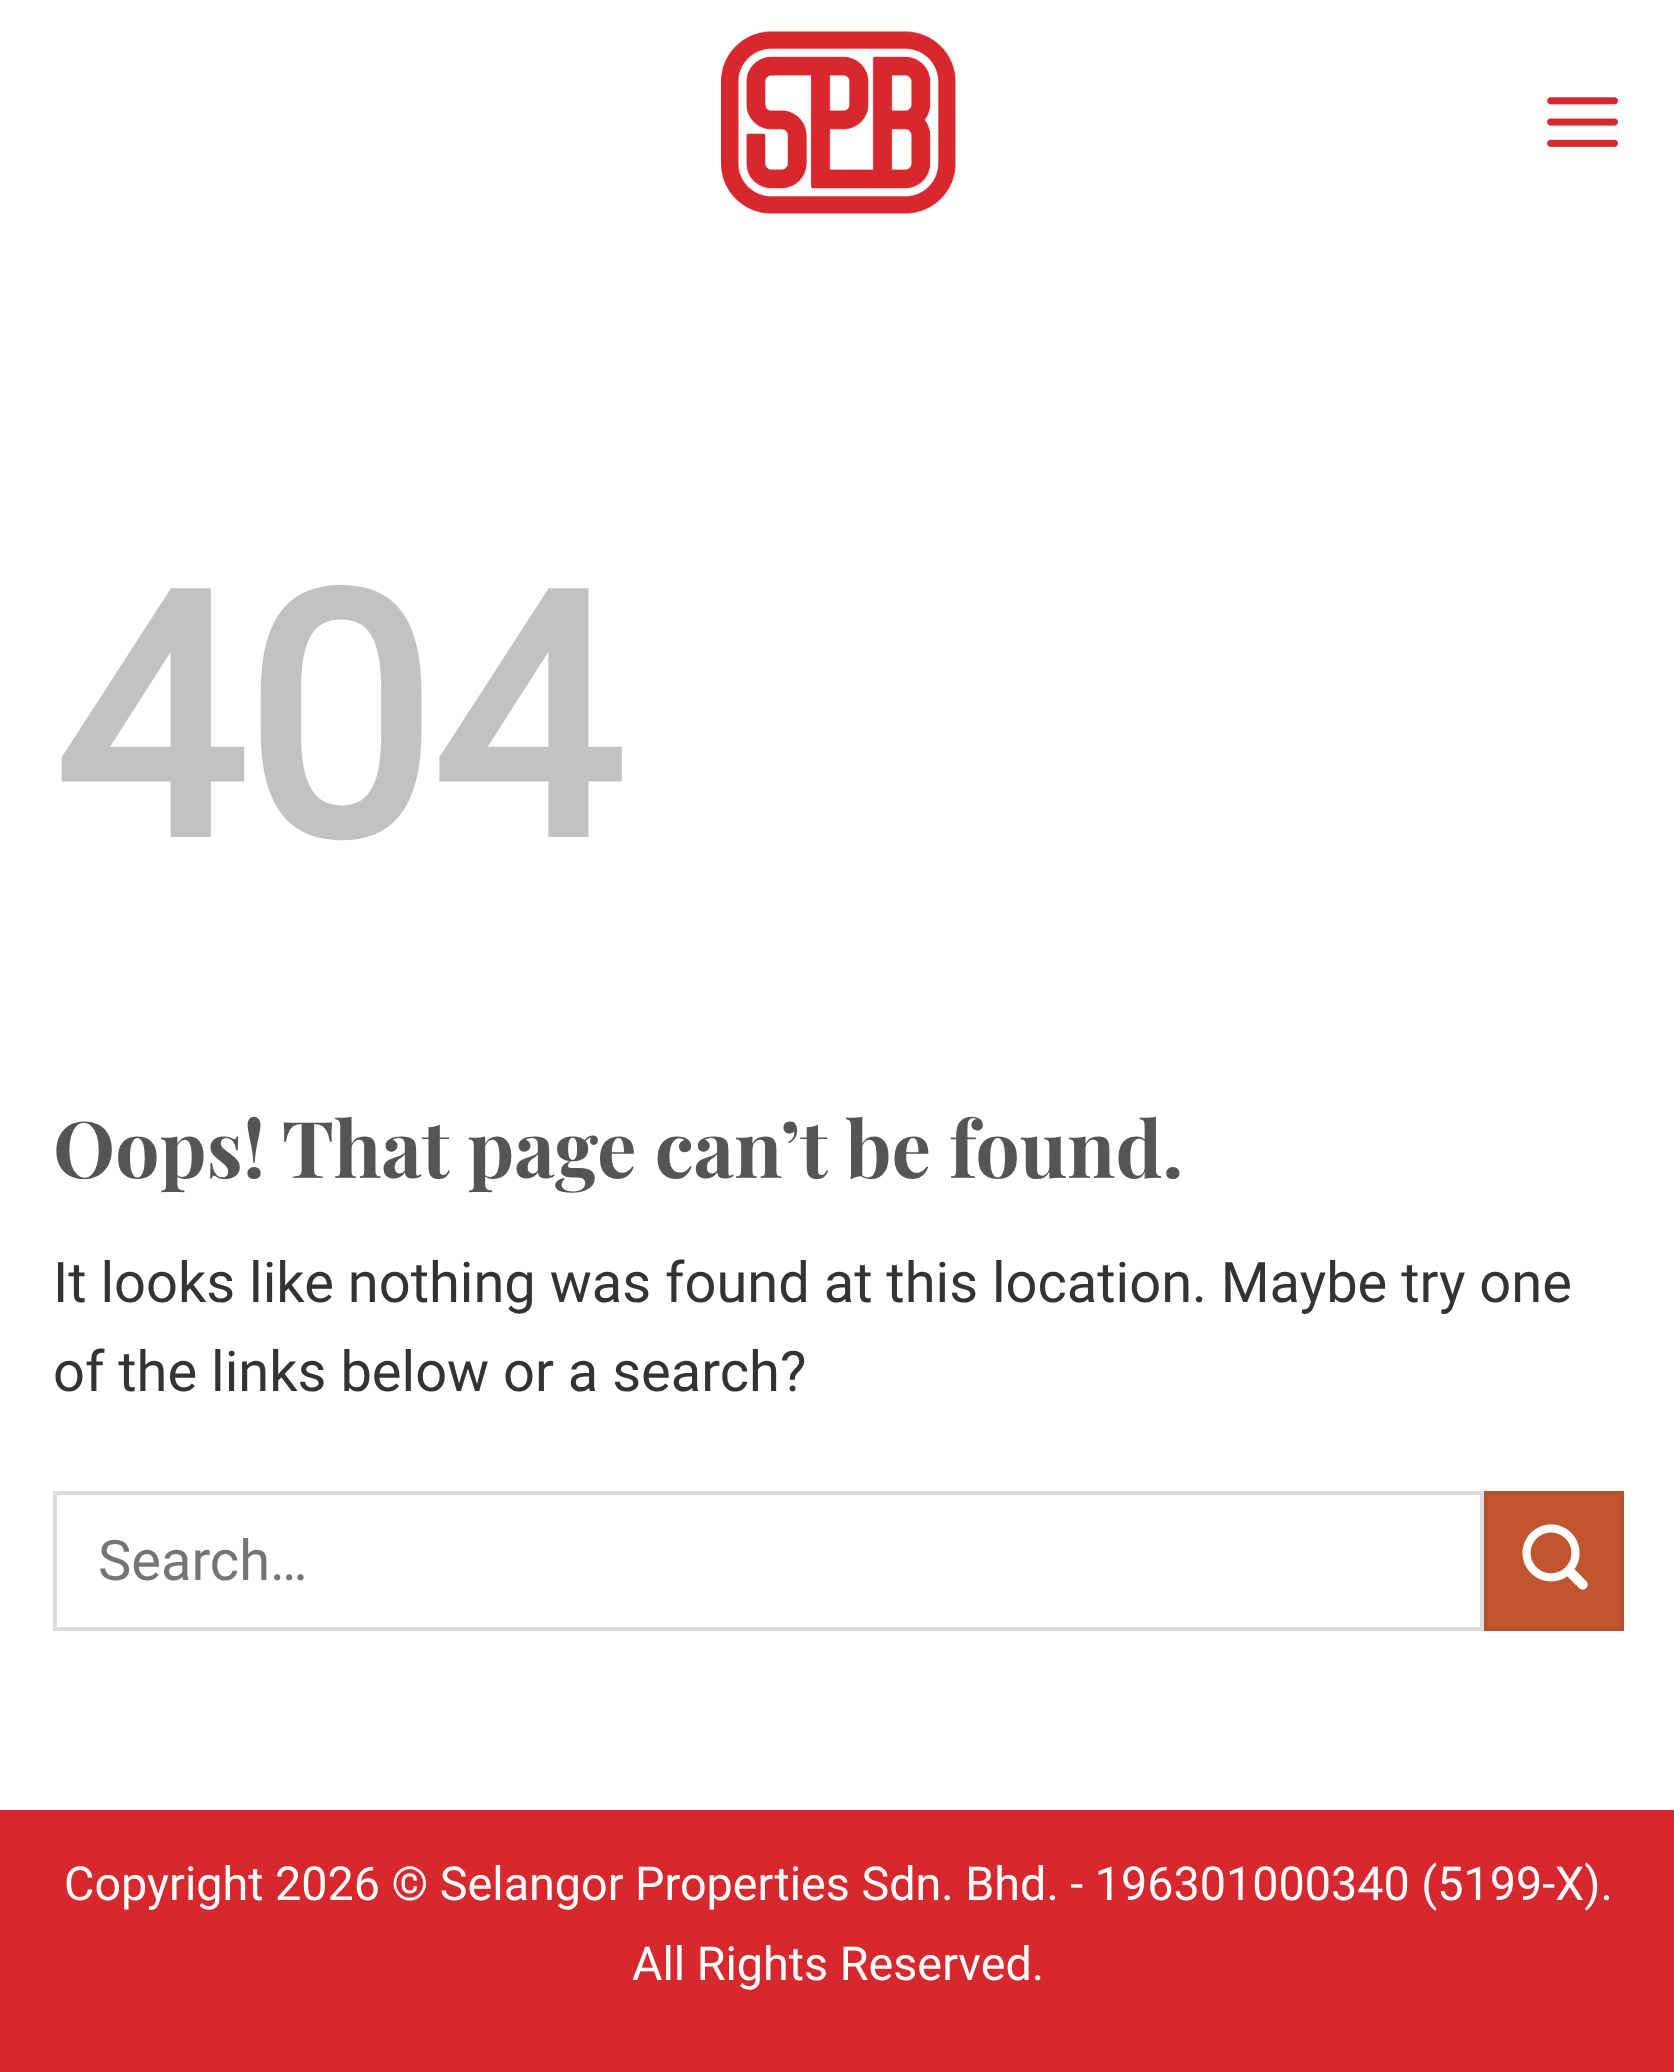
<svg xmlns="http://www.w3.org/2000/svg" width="1674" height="2072">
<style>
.a{font:bold 336px Roboto;fill:#c2c2c2}
.b{font:bold 78.4px Playfair Display;fill:#555}
.c{font:56px Roboto;fill:#333}
.d{font:56px Roboto;fill:#757575}
.e{font:46.7px Roboto;fill:#fff}
</style>
<rect width="100%" height="100%" fill="#d7282e"/>
<path fill="#fff" d="M0 0h1674v1810H0z"/>
<image href="1.png" x="721" y="31" width="235" height="183"/>
<image href="2.png" x="1547" y="97" width="71" height="50"/>
<path fill="none" stroke="#ddd" stroke-width="4" d="M55 1493h1427v136H55z"/>
<path fill="#c05530" stroke="#b6512e" stroke-width="4" d="M1486 1493h136v136H1486z"/>
<image href="3.png" x="1522" y="1524" width="66" height="66"/>
<text class="a" x="53" y="837">404</text>
<text class="b" x="53" y="1178">Oops! That page can’t be found.</text>
<text class="c" x="53" y="1302">It looks like nothing was found at this location. Maybe try one</text>
<text class="c" x="53" y="1391">of the links below or a search?</text>
<text class="d" x="98" y="1580">Search…</text>
<text class="e" x="64" y="1900">Copyright 2026 © Selangor Properties Sdn. Bhd. - 196301000340 (5199-X).</text>
<text class="e" x="632" y="1980">All Rights Reserved.</text>
</svg>
